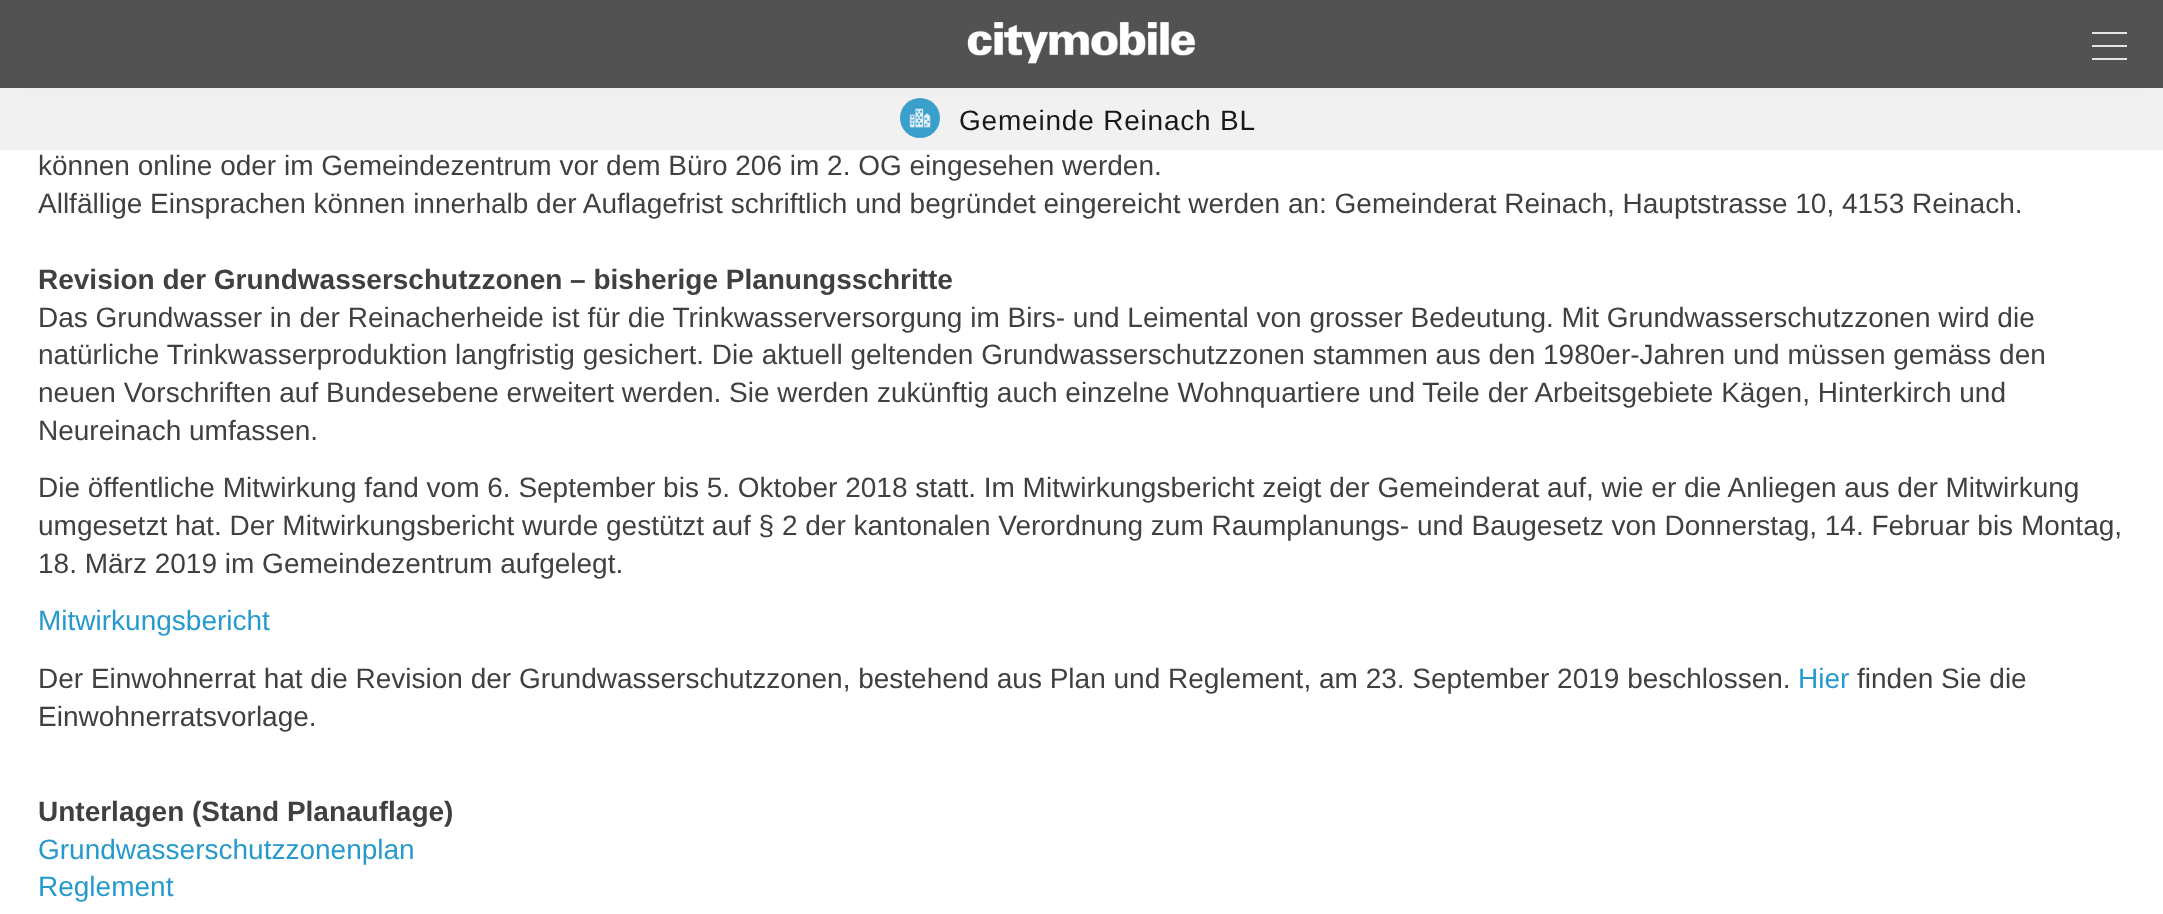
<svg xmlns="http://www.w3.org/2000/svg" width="2163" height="914">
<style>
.a{font:28px Liberation Sans;letter-spacing:0.8px;fill:#181818}
.b{font:28px Liberation Sans;fill:#404040}
.c{font:bold 28px Liberation Sans;fill:#404040}
.d{font:28px Liberation Sans;fill:#269acc}
</style>
<rect width="100%" height="100%" fill="#fff"/>
<path fill="#00000033" filter="blur(10px)" d="M0 0h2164v88H0z"/>
<path fill="#525252" d="M0 0h2163v88H0z"/>
<image href="1.png" x="967" y="22" width="229" height="42"/>
<path fill="#e5e5e5" d="M2092 32h35v2H2092z"/>
<path fill="#e5e5e5" d="M2092 45h35v2H2092z"/>
<path fill="#e5e5e5" d="M2092 58h35v2H2092z"/>
<path fill="#f0f0f0e6" d="M0 88h2163v62H0z"/>
<circle fill="#2696c6e6" cx="920" cy="118" r="20"/>
<image href="2.png" x="909" y="108" width="22" height="20"/>
<text class="a" x="959" y="130">Gemeinde Reinach BL</text>
<text class="b" x="38" y="175">können online oder im Gemeindezentrum vor dem Büro 206 im 2. OG eingesehen werden.</text>
<text class="b" x="38" y="213">Allfällige Einsprachen können innerhalb der Auflagefrist schriftlich und begründet eingereicht werden an: Gemeinderat Reinach, Hauptstrasse 10, 4153 Reinach.</text>
<text class="c" x="38" y="289">Revision der Grundwasserschutzzonen – bisherige Planungsschritte</text>
<text class="b" x="38" y="327">Das Grundwasser in der Reinacherheide ist für die Trinkwasserversorgung im Birs- und Leimental von grosser Bedeutung. Mit Grundwasserschutzzonen wird die</text>
<text class="b" x="38" y="364">natürliche Trinkwasserproduktion langfristig gesichert. Die aktuell geltenden Grundwasserschutzzonen stammen aus den 1980er-Jahren und müssen gemäss den</text>
<text class="b" x="38" y="402">neuen Vorschriften auf Bundesebene erweitert werden. Sie werden zukünftig auch einzelne Wohnquartiere und Teile der Arbeitsgebiete Kägen, Hinterkirch und</text>
<text class="b" x="38" y="440">Neureinach umfassen.</text>
<text class="b" x="38" y="497">Die öffentliche Mitwirkung fand vom 6. September bis 5. Oktober 2018 statt. Im Mitwirkungsbericht zeigt der Gemeinderat auf, wie er die Anliegen aus der Mitwirkung</text>
<text class="b" x="38" y="535">umgesetzt hat. Der Mitwirkungsbericht wurde gestützt auf § 2 der kantonalen Verordnung zum Raumplanungs- und Baugesetz von Donnerstag, 14. Februar bis Montag,</text>
<text class="b" x="38" y="573">18. März 2019 im Gemeindezentrum aufgelegt.</text>
<text class="d" x="38" y="630">Mitwirkungsbericht</text>
<text class="b" x="38" y="688">Der Einwohnerrat hat die Revision der Grundwasserschutzzonen, bestehend aus Plan und Reglement, am 23. September 2019 beschlossen.</text>
<text class="d" x="1798" y="688">Hier</text>
<text class="b" x="1857" y="688">finden Sie die</text>
<text class="b" x="38" y="726">Einwohnerratsvorlage.</text>
<text class="c" x="38" y="821">Unterlagen (Stand Planauflage)</text>
<text class="d" x="38" y="859">Grundwasserschutzzonenplan</text>
<text class="d" x="38" y="896">Reglement</text>
</svg>
